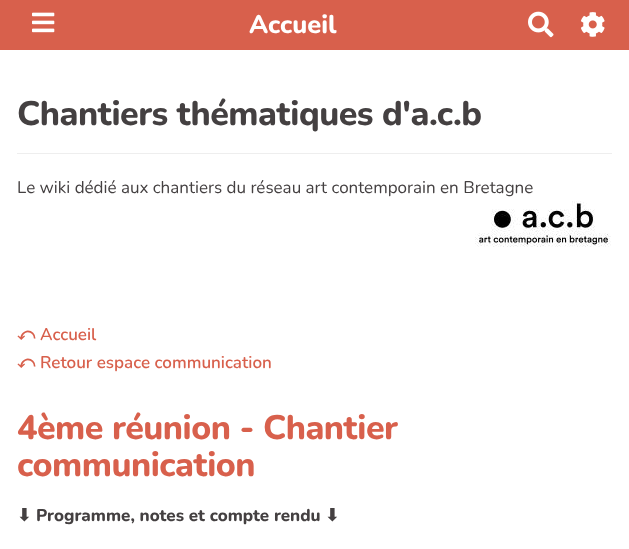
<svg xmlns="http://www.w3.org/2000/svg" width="629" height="549">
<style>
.a{font:800 25.5px Nunito;fill:#fff}
.b{font:800 34px Nunito;letter-spacing:-0.5px;fill:#444041}
.c{font:17px Nunito;fill:#444041}
.d{font:bold 17px FreeSerif;fill:#d8604c}
.e{font:600 17px Nunito;fill:#d8604c}
.f{font:800 34px Nunito;letter-spacing:-0.5px;fill:#d8604c}
.g{font:bold 17px DejaVu Sans;fill:#444041}
.h{font:800 17px Nunito;fill:#444041}
</style>
<rect width="100%" height="100%" fill="#fff"/>
<path fill="#d8604c" d="M0 0h629v50H0z"/>
<image href="1.png" x="32" y="12" width="23" height="21"/>
<image href="2.png" x="528" y="11" width="26" height="27"/>
<image href="3.png" x="581" y="12" width="24" height="25"/>
<path fill="#eee" d="M17 153h595v1H17z"/>
<image href="4.png" x="475" y="201" width="136" height="46"/>
<text class="a" x="249" y="33">Accueil</text>
<text class="b" x="17" y="125">Chantiers thématiques d'a.c.b</text>
<text class="c" x="17" y="193">Le wiki dédié aux chantiers du réseau art contemporain en Bretagne</text>
<text class="d" x="17" y="340">⤺</text>
<text class="e" x="40" y="340">Accueil</text>
<text class="d" x="17" y="368">⤺</text>
<text class="e" x="40" y="368">Retour espace communication</text>
<text class="f" x="17" y="439">4ème réunion - Chantier</text>
<text class="f" x="17" y="476">communication</text>
<text class="g" x="17" y="521">⬇︎</text>
<text class="h" x="36" y="521">Programme, notes et compte rendu</text>
<text class="g" x="325" y="521">⬇︎</text>
</svg>
